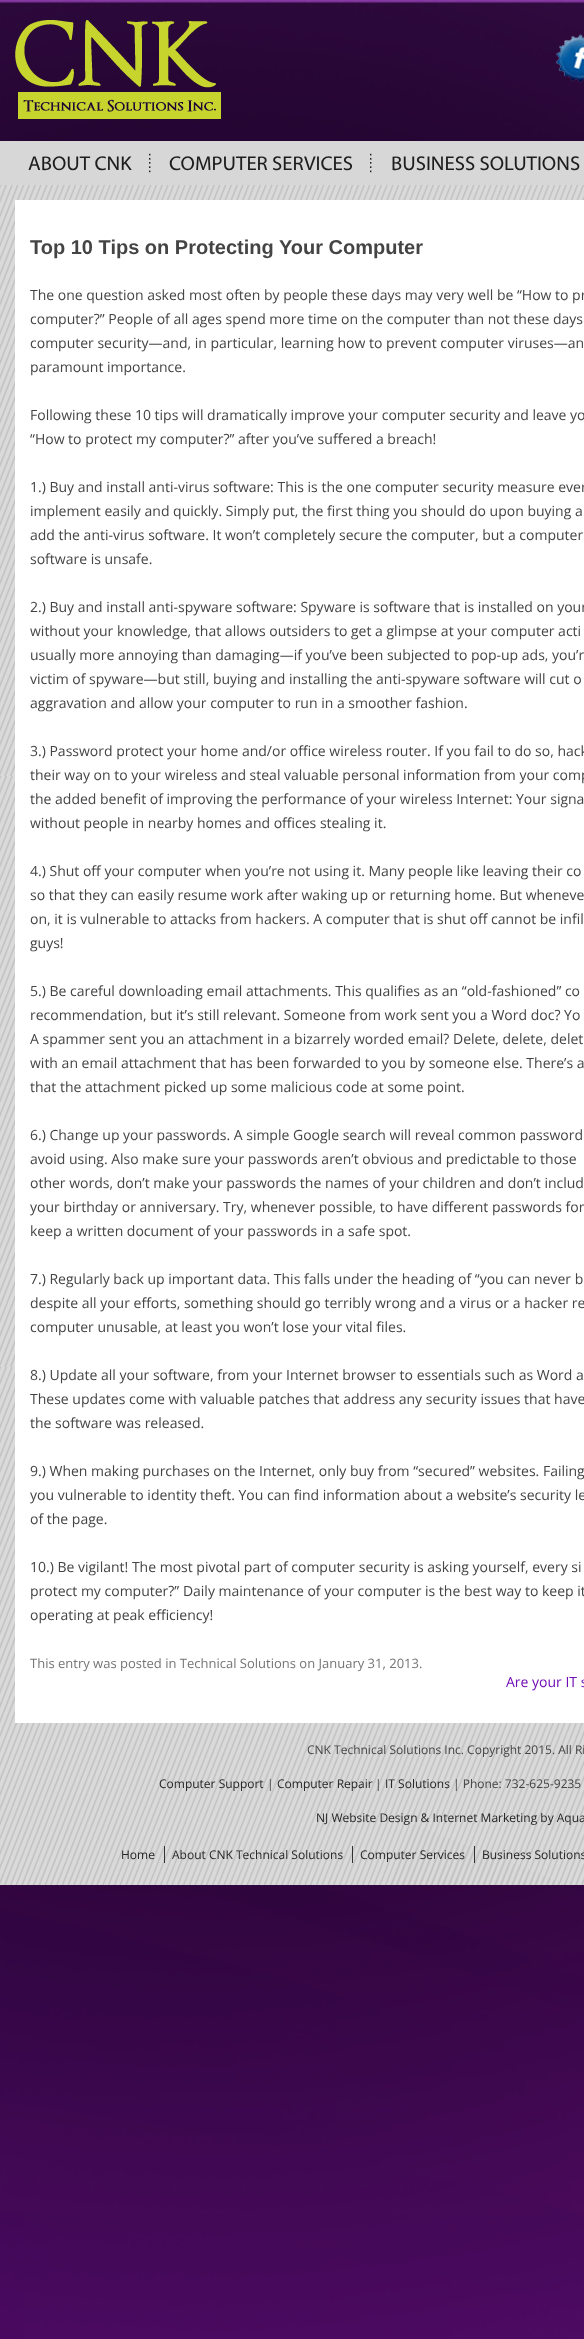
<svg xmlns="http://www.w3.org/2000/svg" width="584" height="2339">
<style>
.a{font:20px Myriad;fill:#1d1d1d}
.b{font:bold 20px Liberation Sans;fill:#444}
.c{font:14px Open Sans;fill:#444}
.d{font:13px Open Sans;fill:#757575}
.e{font:14px Open Sans;fill:#6f0cb4}
.f{font:12px Open Sans;fill:#444}
.g{font:12px Open Sans;fill:#252525}
</style>
<rect width="100%" height="100%" fill="#fff"/>
<image href="1.png" x="0" y="0" width="584" height="2339"/>
<image href="2.png" x="15" y="20" width="206" height="99"/>
<image href="3.png" x="556" y="34" width="28" height="49"/>
<path fill="#d7d7d7" d="M0 141h584v44H0z"/>
<image href="4.png" x="149" y="153" width="2" height="20"/>
<image href="4.png" x="370" y="153" width="2" height="20"/>
<image href="5.png" x="0" y="185" width="584" height="1700"/>
<path fill="#fff" d="M15 200h569v1523H15z"/>
<path fill="#333" d="M164 1846h1v17H164z"/>
<path fill="#333" d="M352 1846h1v17H352z"/>
<path fill="#333" d="M474 1846h1v17H474z"/>
<text class="a" x="28" y="170">ABOUT CNK</text>
<text class="a" x="169" y="170">COMPUTER SERVICES</text>
<text class="a" x="391" y="170">BUSINESS SOLUTIONS</text>
<text class="b" x="30" y="254">Top 10 Tips on Protecting Your Computer</text>
<text class="c" x="30" y="300">The one question asked most often by people these days may very well be “How to pr</text>
<text class="c" x="30" y="324">computer?” People of all ages spend more time on the computer than not these days</text>
<text class="c" x="30" y="348">computer security—and, in particular, learning how to prevent computer viruses—an</text>
<text class="c" x="30" y="372">paramount importance.</text>
<text class="c" x="30" y="420">Following these 10 tips will dramatically improve your computer security and leave yo</text>
<text class="c" x="30" y="444">“How to protect my computer?” after you’ve suffered a breach!</text>
<text class="c" x="30" y="492">1.) Buy and install anti-virus software: This is the one computer security measure ever</text>
<text class="c" x="30" y="516">implement easily and quickly. Simply put, the first thing you should do upon buying a</text>
<text class="c" x="30" y="540">add the anti-virus software. It won’t completely secure the computer, but a computer</text>
<text class="c" x="30" y="564">software is unsafe.</text>
<text class="c" x="30" y="612">2.) Buy and install anti-spyware software: Spyware is software that is installed on your</text>
<text class="c" x="30" y="636">without your knowledge, that allows outsiders to get a glimpse at your computer acti</text>
<text class="c" x="30" y="660">usually more annoying than damaging—if you’ve been subjected to pop-up ads, you’r</text>
<text class="c" x="30" y="684">victim of spyware—but still, buying and installing the anti-spyware software will cut o</text>
<text class="c" x="30" y="708">aggravation and allow your computer to run in a smoother fashion.</text>
<text class="c" x="30" y="756">3.) Password protect your home and/or office wireless router. If you fail to do so, hack</text>
<text class="c" x="30" y="780">their way on to your wireless and steal valuable personal information from your comp</text>
<text class="c" x="30" y="804">the added benefit of improving the performance of your wireless Internet: Your signa</text>
<text class="c" x="30" y="828">without people in nearby homes and offices stealing it.</text>
<text class="c" x="30" y="876">4.) Shut off your computer when you’re not using it. Many people like leaving their co</text>
<text class="c" x="30" y="900">so that they can easily resume work after waking up or returning home. But wheneve</text>
<text class="c" x="30" y="924">on, it is vulnerable to attacks from hackers. A computer that is shut off cannot be infil</text>
<text class="c" x="30" y="948">guys!</text>
<text class="c" x="30" y="996">5.) Be careful downloading email attachments. This qualifies as an “old-fashioned” co</text>
<text class="c" x="30" y="1020">recommendation, but it’s still relevant. Someone from work sent you a Word doc? Yo</text>
<text class="c" x="30" y="1044">A spammer sent you an attachment in a bizarrely worded email? Delete, delete, delet</text>
<text class="c" x="30" y="1068">with an email attachment that has been forwarded to you by someone else. There’s a</text>
<text class="c" x="30" y="1092">that the attachment picked up some malicious code at some point.</text>
<text class="c" x="30" y="1140">6.) Change up your passwords. A simple Google search will reveal common password</text>
<text class="c" x="30" y="1164">avoid using. Also make sure your passwords aren’t obvious and predictable to those</text>
<text class="c" x="30" y="1188">other words, don’t make your passwords the names of your children and don’t includ</text>
<text class="c" x="30" y="1212">your birthday or anniversary. Try, whenever possible, to have different passwords for</text>
<text class="c" x="30" y="1236">keep a written document of your passwords in a safe spot.</text>
<text class="c" x="30" y="1284">7.) Regularly back up important data. This falls under the heading of “you can never b</text>
<text class="c" x="30" y="1308">despite all your efforts, something should go terribly wrong and a virus or a hacker re</text>
<text class="c" x="30" y="1332">computer unusable, at least you won’t lose your vital files.</text>
<text class="c" x="30" y="1380">8.) Update all your software, from your Internet browser to essentials such as Word a</text>
<text class="c" x="30" y="1404">These updates come with valuable patches that address any security issues that have</text>
<text class="c" x="30" y="1428">the software was released.</text>
<text class="c" x="30" y="1476">9.) When making purchases on the Internet, only buy from “secured” websites. Failing</text>
<text class="c" x="30" y="1500">you vulnerable to identity theft. You can find information about a website’s security le</text>
<text class="c" x="30" y="1524">of the page.</text>
<text class="c" x="30" y="1572">10.) Be vigilant! The most pivotal part of computer security is asking yourself, every si</text>
<text class="c" x="30" y="1596">protect my computer?” Daily maintenance of your computer is the best way to keep it</text>
<text class="c" x="30" y="1620">operating at peak efficiency!</text>
<text class="d" x="30" y="1668">This entry was posted in Technical Solutions on January 31, 2013.</text>
<text class="e" x="506" y="1687">Are your IT s</text>
<text class="f" x="307" y="1754">CNK Technical Solutions Inc. Copyright 2015. All Ri</text>
<text class="g" x="159" y="1788">Computer Support</text>
<text class="f" x="267" y="1788">|</text>
<text class="g" x="277" y="1788">Computer Repair</text>
<text class="f" x="375" y="1788">|</text>
<text class="g" x="385" y="1788">IT Solutions</text>
<text class="f" x="453" y="1788">| Phone: 732-625-9235</text>
<text class="g" x="316" y="1822">NJ Website Design &amp; Internet Marketing by Aqua</text>
<text class="g" x="121" y="1859">Home</text>
<text class="g" x="172" y="1859">About CNK Technical Solutions</text>
<text class="g" x="360" y="1859">Computer Services</text>
<text class="g" x="482" y="1859">Business Solutions</text>
</svg>
